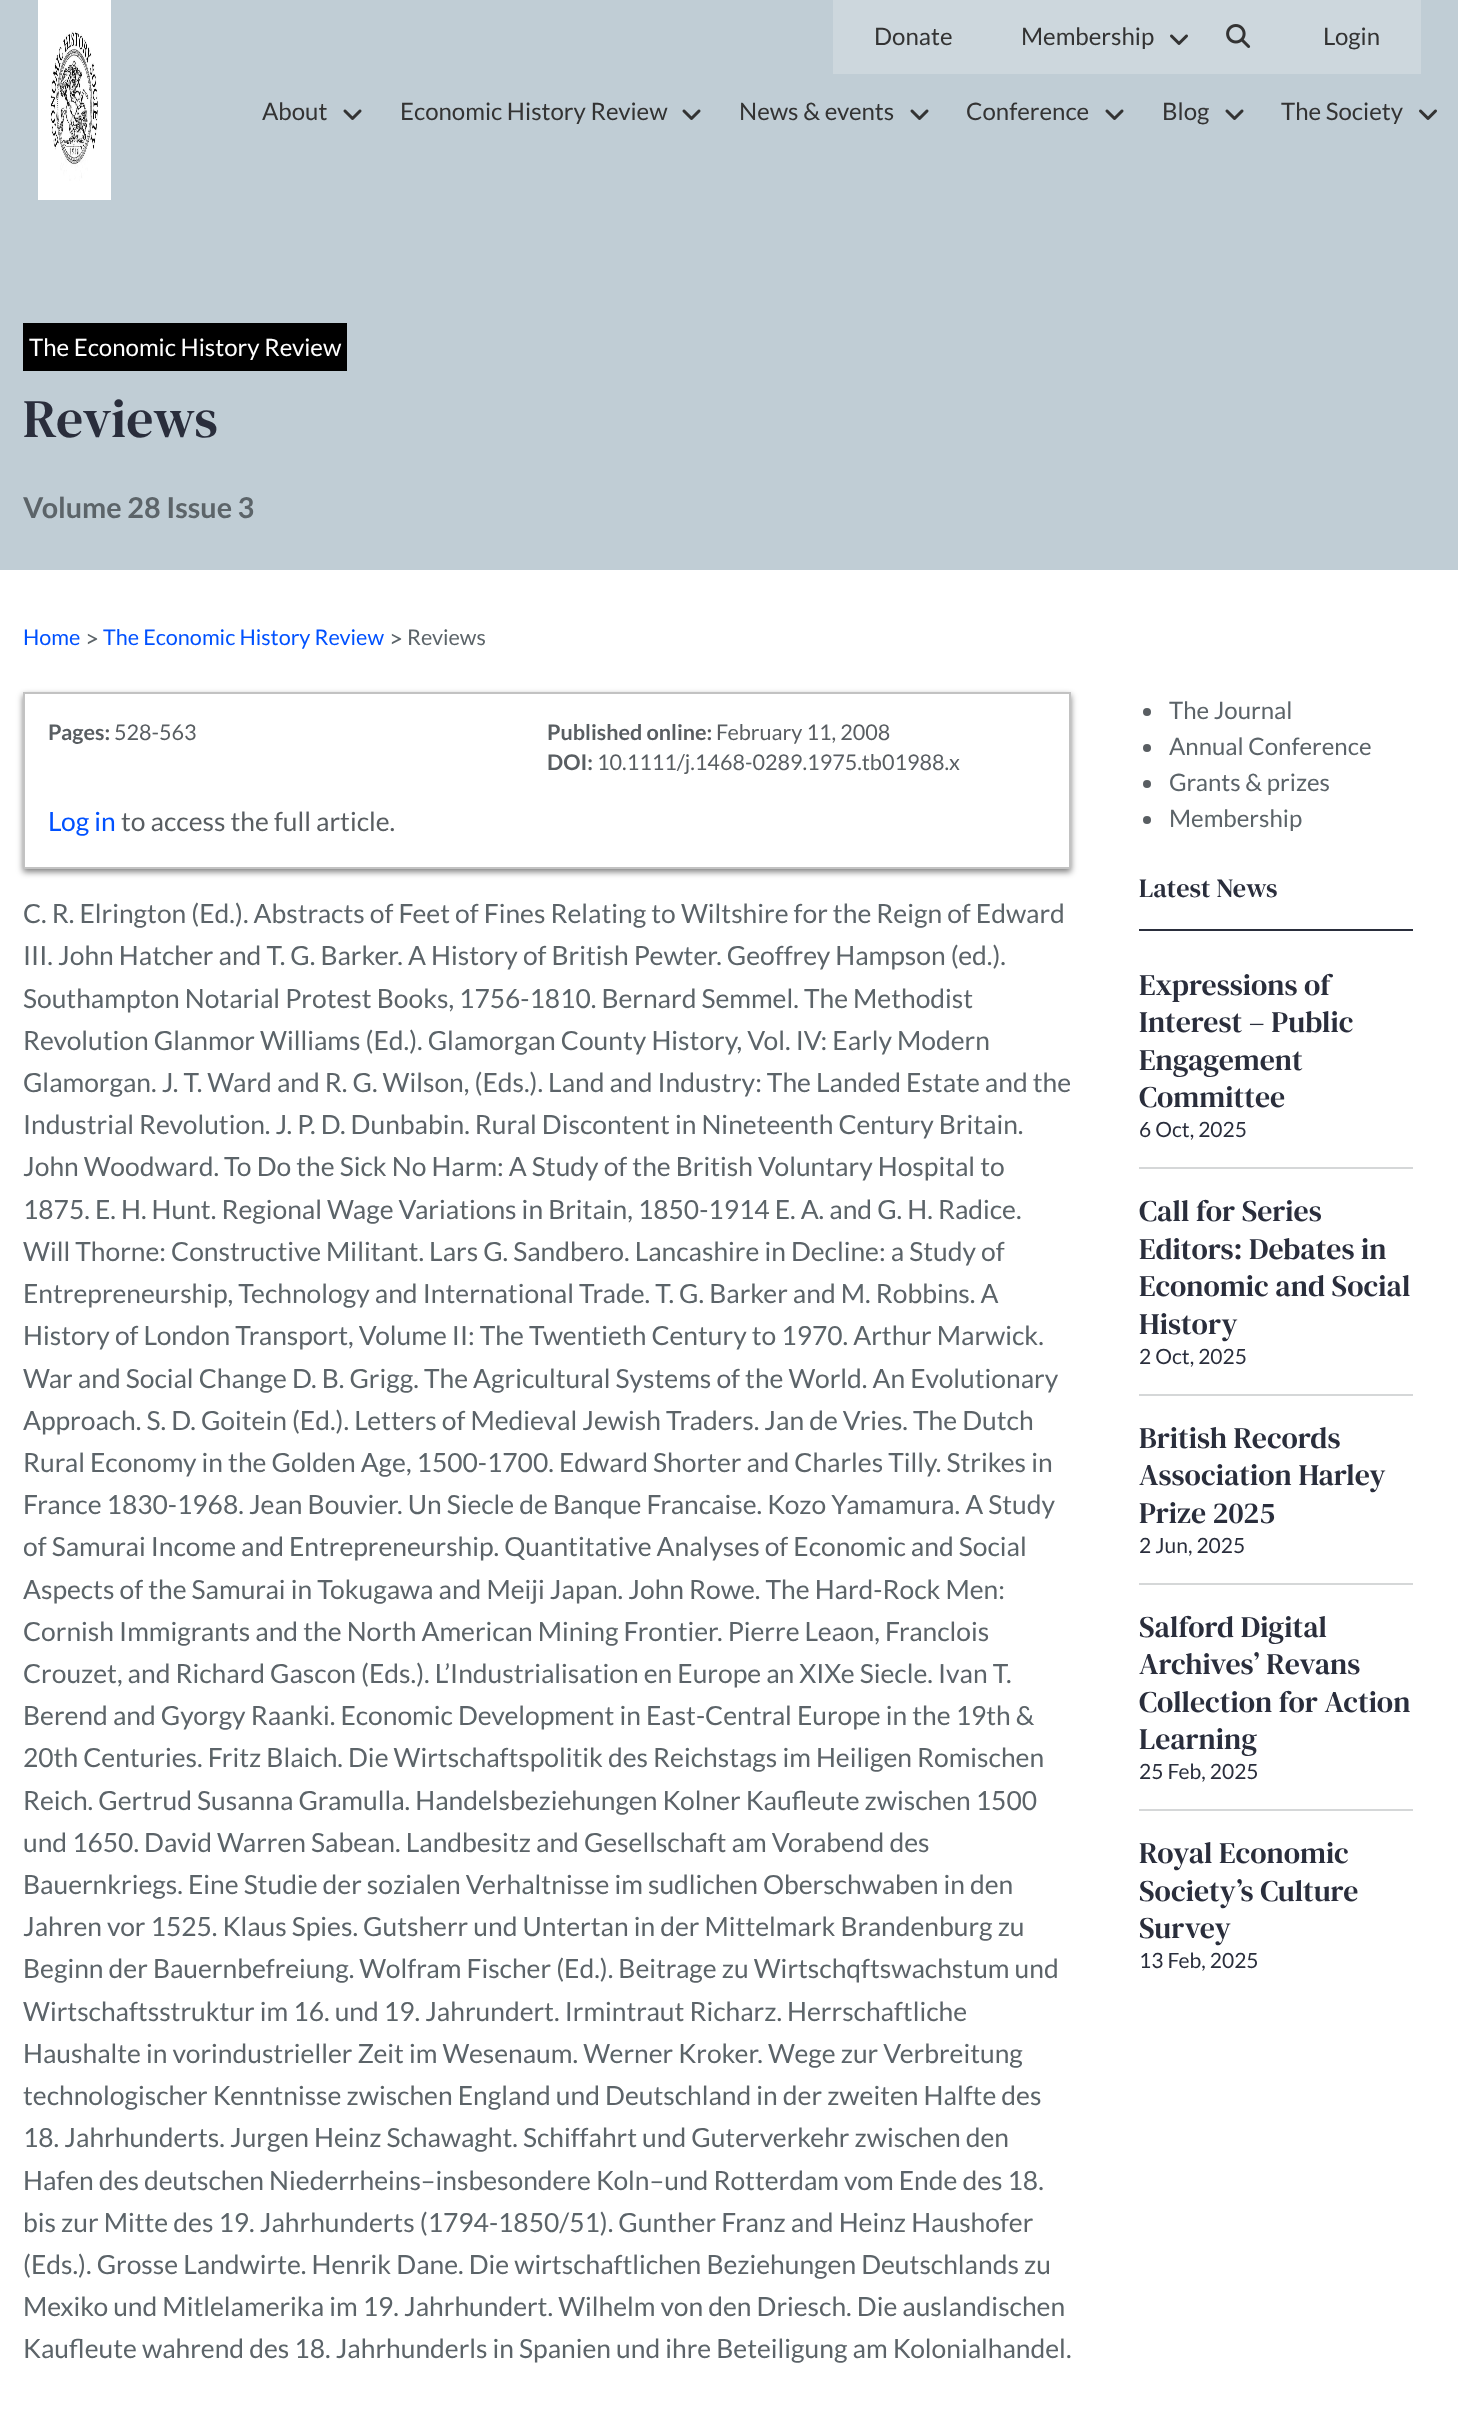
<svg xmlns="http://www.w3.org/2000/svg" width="1458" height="2415">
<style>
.a{font:24px Lato;fill:#333}
.b{font:24px Lato;fill:#fff}
.c{font:54px DM Serif Text;fill:#2a2e3c}
.d{font:bold 28.75px Lato;fill:#5c6469}
.e{font:21.6px Lato;fill:#0051ff}
.f{font:24px Lato;fill:#5c6469}
.g{font:21.6px Lato;fill:#5c6469}
.h{font:bold 21.6px Lato;fill:#595e62}
.i{font:21.6px Lato;fill:#595e62}
.j{font:26.4px Lato;fill:#0051ff}
.k{font:26.4px Lato;fill:#595e62}
.l{font:26.4px Lato;fill:#5c6469}
.m{font:26.4px DM Serif Text;fill:#2a2e3c}
.n{font:30px DM Serif Text;fill:#2a2e3c}
.o{font:21px Lato;fill:#2a2e3c}
</style>
<rect width="100%" height="100%" fill="#fff"/>
<path fill="#c0cdd5" d="M0 0h1458v570H0z"/>
<path fill="#fff" d="M38 0h73v200H38z"/>
<image href="1.png" x="50" y="31" width="48" height="150"/>
<path fill="#cdd7dd" d="M833 0h588v74H833z"/>
<image href="2.png" x="1170" y="34" width="18" height="11"/>
<image href="3.png" x="1226" y="24" width="25" height="24"/>
<image href="4.png" x="343" y="109" width="19" height="11"/>
<image href="4.png" x="682" y="109" width="19" height="11"/>
<image href="4.png" x="910" y="109" width="19" height="11"/>
<image href="4.png" x="1105" y="109" width="19" height="11"/>
<image href="4.png" x="1225" y="109" width="19" height="11"/>
<image href="5.png" x="1419" y="109" width="18" height="11"/>
<path fill="#000" d="M23 323h324v48H23z"/>
<path fill="#00000080" filter="blur(3px)" d="M23 695h1048v177H23z"/>
<path fill="#fff" stroke="#c2c2c2" stroke-width="2" d="M24 693h1046v175H24z"/>
<circle fill="#595e62" cx="1147" cy="712" r="4"/>
<circle fill="#595e62" cx="1147" cy="748" r="4"/>
<circle fill="#595e62" cx="1147" cy="784" r="4"/>
<circle fill="#595e62" cx="1147" cy="820" r="4"/>
<path fill="#2a2e3c" d="M1139 929h274v2H1139z"/>
<path fill="#d5d7d8" d="M1139 1167h274v2H1139z"/>
<path fill="#d5d7d8" d="M1139 1394h274v2H1139z"/>
<path fill="#d5d7d8" d="M1139 1583h274v2H1139z"/>
<path fill="#d5d7d8" d="M1139 1809h274v2H1139z"/>
<text class="a" x="874" y="45">Donate</text>
<text class="a" x="1021" y="45">Membership</text>
<text class="a" x="1323" y="45">Login</text>
<text class="a" x="262" y="120">About</text>
<text class="a" x="400" y="120">Economic History Review</text>
<text class="a" x="739" y="120">News &amp; events</text>
<text class="a" x="966" y="120">Conference</text>
<text class="a" x="1162" y="120">Blog</text>
<text class="a" x="1281" y="120">The Society</text>
<text class="b" x="29" y="356">The Economic History Review</text>
<text class="c" x="23" y="437">Reviews</text>
<text class="d" x="23" y="518">Volume 28 Issue 3</text>
<text class="e" x="23" y="645">Home</text>
<text class="f" x="85" y="647">&gt;</text>
<text class="e" x="103" y="645">The Economic History Review</text>
<text class="f" x="389" y="647">&gt;</text>
<text class="g" x="407" y="645">Reviews</text>
<text class="h" x="48" y="740">Pages:</text>
<text class="i" x="114" y="740">528-563</text>
<text class="h" x="547" y="740">Published online:</text>
<text class="i" x="716" y="740">February 11, 2008</text>
<text class="h" x="547" y="770">DOI:</text>
<text class="i" x="597" y="770">10.1111/j.1468-0289.1975.tb01988.x</text>
<text class="j" x="48" y="831">Log in</text>
<text class="k" x="121" y="831">to access the full article.</text>
<text class="l" x="23" y="923">C. R. Elrington (Ed.). Abstracts of Feet of Fines Relating to Wiltshire for the Reign of Edward</text>
<text class="l" x="23" y="965">III. John Hatcher and T. G. Barker. A History of British Pewter. Geoffrey Hampson (ed.).</text>
<text class="l" x="23" y="1008">Southampton Notarial Protest Books, 1756-1810. Bernard Semmel. The Methodist</text>
<text class="l" x="23" y="1050">Revolution Glanmor Williams (Ed.). Glamorgan County History, Vol. IV: Early Modern</text>
<text class="l" x="23" y="1092">Glamorgan. J. T. Ward and R. G. Wilson, (Eds.). Land and Industry: The Landed Estate and the</text>
<text class="l" x="23" y="1134">Industrial Revolution. J. P. D. Dunbabin. Rural Discontent in Nineteenth Century Britain.</text>
<text class="l" x="23" y="1176">John Woodward. To Do the Sick No Harm: A Study of the British Voluntary Hospital to</text>
<text class="l" x="23" y="1219">1875. E. H. Hunt. Regional Wage Variations in Britain, 1850-1914 E. A. and G. H. Radice.</text>
<text class="l" x="23" y="1261">Will Thorne: Constructive Militant. Lars G. Sandbero. Lancashire in Decline: a Study of</text>
<text class="l" x="23" y="1303">Entrepreneurship, Technology and International Trade. T. G. Barker and M. Robbins. A</text>
<text class="l" x="23" y="1345">History of London Transport, Volume II: The Twentieth Century to 1970. Arthur Marwick.</text>
<text class="l" x="23" y="1388">War and Social Change D. B. Grigg. The Agricultural Systems of the World. An Evolutionary</text>
<text class="l" x="23" y="1430">Approach. S. D. Goitein (Ed.). Letters of Medieval Jewish Traders. Jan de Vries. The Dutch</text>
<text class="l" x="23" y="1472">Rural Economy in the Golden Age, 1500-1700. Edward Shorter and Charles Tilly. Strikes in</text>
<text class="l" x="23" y="1514">France 1830-1968. Jean Bouvier. Un Siecle de Banque Francaise. Kozo Yamamura. A Study</text>
<text class="l" x="23" y="1556">of Samurai Income and Entrepreneurship. Quantitative Analyses of Economic and Social</text>
<text class="l" x="23" y="1599">Aspects of the Samurai in Tokugawa and Meiji Japan. John Rowe. The Hard-Rock Men:</text>
<text class="l" x="23" y="1641">Cornish Immigrants and the North American Mining Frontier. Pierre Leaon, Franclois</text>
<text class="l" x="23" y="1683">Crouzet, and Richard Gascon (Eds.). L’Industrialisation en Europe an XIXe Siecle. Ivan T.</text>
<text class="l" x="23" y="1725">Berend and Gyorgy Raanki. Economic Development in East-Central Europe in the 19th &amp;</text>
<text class="l" x="23" y="1767">20th Centuries. Fritz Blaich. Die Wirtschaftspolitik des Reichstags im Heiligen Romischen</text>
<text class="l" x="23" y="1810">Reich. Gertrud Susanna Gramulla. Handelsbeziehungen Kolner Kaufleute zwischen 1500</text>
<text class="l" x="23" y="1852">und 1650. David Warren Sabean. Landbesitz and Gesellschaft am Vorabend des</text>
<text class="l" x="23" y="1894">Bauernkriegs. Eine Studie der sozialen Verhaltnisse im sudlichen Oberschwaben in den</text>
<text class="l" x="23" y="1936">Jahren vor 1525. Klaus Spies. Gutsherr und Untertan in der Mittelmark Brandenburg zu</text>
<text class="l" x="23" y="1978">Beginn der Bauernbefreiung. Wolfram Fischer (Ed.). Beitrage zu Wirtschqftswachstum und</text>
<text class="l" x="23" y="2021">Wirtschaftsstruktur im 16. und 19. Jahrundert. Irmintraut Richarz. Herrschaftliche</text>
<text class="l" x="23" y="2063">Haushalte in vorindustrieller Zeit im Wesenaum. Werner Kroker. Wege zur Verbreitung</text>
<text class="l" x="23" y="2105">technologischer Kenntnisse zwischen England und Deutschland in der zweiten Halfte des</text>
<text class="l" x="23" y="2147">18. Jahrhunderts. Jurgen Heinz Schawaght. Schiffahrt und Guterverkehr zwischen den</text>
<text class="l" x="23" y="2190">Hafen des deutschen Niederrheins–insbesondere Koln–und Rotterdam vom Ende des 18.</text>
<text class="l" x="23" y="2232">bis zur Mitte des 19. Jahrhunderts (1794-1850/51). Gunther Franz and Heinz Haushofer</text>
<text class="l" x="23" y="2274">(Eds.). Grosse Landwirte. Henrik Dane. Die wirtschaftlichen Beziehungen Deutschlands zu</text>
<text class="l" x="23" y="2316">Mexiko und Mitlelamerika im 19. Jahrhundert. Wilhelm von den Driesch. Die auslandischen</text>
<text class="l" x="23" y="2358">Kaufleute wahrend des 18. Jahrhunderls in Spanien und ihre Beteiligung am Kolonialhandel.</text>
<text class="f" x="1169" y="719">The Journal</text>
<text class="f" x="1169" y="755">Annual Conference</text>
<text class="f" x="1169" y="791">Grants &amp; prizes</text>
<text class="f" x="1169" y="827">Membership</text>
<text class="m" x="1139" y="897">Latest News</text>
<text class="n" x="1139" y="995">Expressions of</text>
<text class="n" x="1139" y="1032">Interest – Public</text>
<text class="n" x="1139" y="1070">Engagement</text>
<text class="n" x="1139" y="1107">Committee</text>
<text class="o" x="1139" y="1137">6 Oct, 2025</text>
<text class="n" x="1139" y="1221">Call for Series</text>
<text class="n" x="1139" y="1259">Editors: Debates in</text>
<text class="n" x="1139" y="1296">Economic and Social</text>
<text class="n" x="1139" y="1334">History</text>
<text class="o" x="1139" y="1364">2 Oct, 2025</text>
<text class="n" x="1139" y="1448">British Records</text>
<text class="n" x="1139" y="1485">Association Harley</text>
<text class="n" x="1139" y="1523">Prize 2025</text>
<text class="o" x="1139" y="1553">2 Jun, 2025</text>
<text class="n" x="1139" y="1637">Salford Digital</text>
<text class="n" x="1139" y="1674">Archives’ Revans</text>
<text class="n" x="1139" y="1712">Collection for Action</text>
<text class="n" x="1139" y="1749">Learning</text>
<text class="o" x="1139" y="1779">25 Feb, 2025</text>
<text class="n" x="1139" y="1863">Royal Economic</text>
<text class="n" x="1139" y="1901">Society’s Culture</text>
<text class="n" x="1139" y="1938">Survey</text>
<text class="o" x="1139" y="1968">13 Feb, 2025</text>
</svg>
